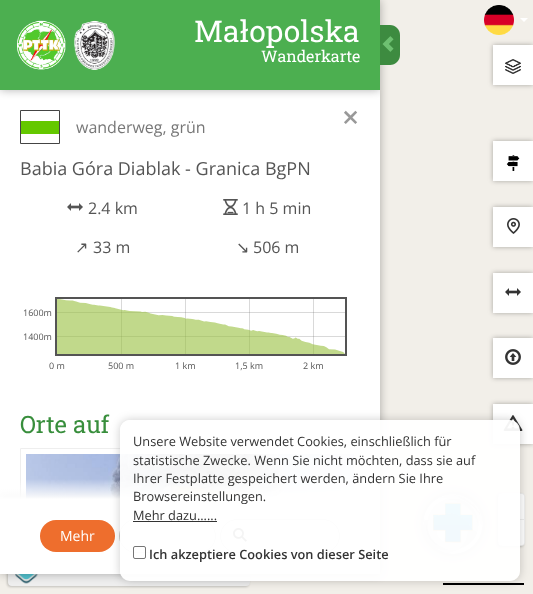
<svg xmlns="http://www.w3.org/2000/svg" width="533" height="594">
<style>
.a{font:30px Roboto Slab;fill:#fff}
.b{font:16px Roboto Slab;fill:#fff}
.c{font:600 30px Open Sans;fill:#999}
.d{font:16px Open Sans;fill:#777}
.e{font:18px Open Sans;fill:#555}
.f{font:16px Open Sans;fill:#555}
.g{font:16px DejaVu Sans;fill:#555}
.h{font:9px Open Sans;fill:#555}
.i{font:24px Roboto Slab;fill:#388e3c}
.j{font:14px Open Sans;fill:#fff}
.k{font:12.8px Open Sans;fill:#333}
.l{font:600 12.8px Open Sans;fill:#333}
</style>
<defs>
<clipPath id="clip1"><path d="M0 90h380v409H0z"/></clipPath>
<linearGradient id="g1" gradientUnits="userSpaceOnUse" x1="190" y1="479" x2="190" y2="499"><stop offset="0" stop-color="#fff" stop-opacity="0"/><stop offset="1" stop-color="#fff"/></linearGradient>
<clipPath id="clip2"><path d="M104 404h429v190h-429zm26 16h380c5.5 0 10 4.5 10 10v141c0 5.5-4.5 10-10 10h-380c-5.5 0-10-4.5-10-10v-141c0-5.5 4.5-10 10-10z" clip-rule="evenodd"/></clipPath>
</defs>
<rect width="100%" height="100%" fill="#f2efe9"/>
<path fill="#0000004d" filter="blur(5px)" d="M0 90h380v409H0z"/>
<path fill="#fff" d="M0 90h380v409H0z"/>
<path fill="#0000004d" filter="blur(5px)" d="M0 0h380v90H0z"/>
<path fill="#4caf50" d="M0 0h380v90H0z"/>
<image href="1.png" x="17" y="20" width="98" height="50"/>
<path fill="#3d8b40" d="M380 25h10c5.5 0 10 4.5 10 10v20c0 5.5-4.5 10-10 10h-10z"/>
<image href="2.png" x="382" y="36" width="12" height="16"/>
<path fill="none" stroke="#444" d="M20.5 110.5h39v33H20.5z"/>
<path fill="#64c800" d="M21 121h38v13H21z"/>
<image href="3.png" x="67" y="203" width="16" height="8"/>
<image href="4.png" x="223" y="199" width="15" height="16"/>
<image href="5.png" x="55" y="297" width="292" height="59"/>
<rect fill="#00000033" filter="blur(1px)" x="7" y="558" width="242" height="29" rx="4"/>
<rect fill="#eee" x="8" y="557" width="242" height="29" rx="4"/>
<image href="16.png" x="15" y="574" width="23" height="10"/>
<g clip-path="url(#clip1)">
<path fill="none" stroke="#eee" d="M20.5 448.5h339v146H20.5z"/>
</g>
<image href="6.png" x="26" y="454" width="328" height="45"/>
<path fill="#0000004d" filter="blur(5px)" d="M0 499h380v75H0z"/>
<path fill="url(#g1)" d="M0 479h380v20H0z"/>
<path fill="#fff" d="M0 499h380v75H0z"/>
<rect fill="#ee6e2d" x="40" y="520" width="75" height="32" rx="16"/>
<rect fill="none" stroke="#ccc" x="119.5" y="519.5" width="96" height="33" rx="16.5"/>
<rect fill="none" stroke="#ccc" x="220.5" y="519.5" width="119" height="33" rx="16.5"/>
<image href="7.png" x="233" y="527" width="14" height="15"/>
<image href="8.png" x="484" y="5" width="30" height="30"/>
<path fill="#fff" d="M520 18h8l-4 4z"/>
<path fill="#0000004d" filter="blur(2.5px)" d="M493 45h40v40H493z"/>
<path fill="#fff" d="M493 45h40v40H493z"/>
<image href="9.png" x="505" y="59" width="16" height="15"/>
<path fill="#0000004d" filter="blur(2.5px)" d="M493 141h40v40H493z"/>
<path fill="#fff" d="M493 141h40v40H493z"/>
<image href="10.png" x="506" y="155" width="14" height="16"/>
<path fill="#0000004d" filter="blur(2.5px)" d="M493 207h40v40H493z"/>
<path fill="#fff" d="M493 207h40v40H493z"/>
<image href="11.png" x="507" y="218" width="13" height="16"/>
<path fill="#0000004d" filter="blur(2.5px)" d="M493 273h40v40H493z"/>
<path fill="#fff" d="M493 273h40v40H493z"/>
<image href="12.png" x="505" y="288" width="16" height="8"/>
<path fill="#0000004d" filter="blur(2.5px)" d="M493 338h40v40H493z"/>
<path fill="#fff" d="M493 338h40v40H493z"/>
<image href="13.png" x="505" y="349" width="16" height="16"/>
<path fill="#0000004d" filter="blur(2.5px)" d="M493 404h40v40H493z"/>
<path fill="#fff" d="M493 404h40v40H493z"/>
<image href="14.png" x="503" y="415" width="20" height="16"/>
<rect fill="#00000033" filter="blur(1px)" x="497" y="494" width="27" height="53" rx="4"/>
<rect fill="#eee" x="498" y="493" width="27" height="53" rx="4"/>
<rect fill="#0000004d" filter="blur(5px)" x="423" y="494" width="60" height="60" rx="30"/>
<image href="15.png" x="423" y="494" width="60" height="60"/>
<path fill="#fff" d="M501 494h21c1 0 2 1 2 2v23h-25v-23c0-1 1-2 2-2z"/>
<path fill="#fff" d="M499 520h25v23c0 1-1 2-2 2h-21c-1 0-2-1-2-2z"/>
<path fill="#000" d="M443 583h81v2H443z"/>
<g clip-path="url(#clip2)">
<rect fill="#00000033" filter="blur(5px)" x="120" y="420" width="400" height="161" rx="10"/>
</g>
<rect fill="#fffffff2" x="120" y="420" width="400" height="161" rx="10"/>
<path fill="#333" d="M133 521h84v1H133z"/>
<rect fill="none" stroke="#767676" x="133.5" y="546.5" width="12" height="12" rx="1.5"/>
<text class="a" x="194" y="42">Małopolska</text>
<text class="b" x="261" y="62">Wanderkarte</text>
<text class="c" x="342" y="128">×</text>
<text class="d" x="76" y="133">wanderweg, grün</text>
<text class="e" x="20" y="175">Babia Góra Diablak - Granica BgPN</text>
<text class="f" x="88" y="214">2.4 km</text>
<text class="f" x="242" y="214">1 h 5 min</text>
<text class="g" x="75" y="253">↗</text>
<text class="f" x="93" y="253">33 m</text>
<text class="g" x="236" y="253">↘</text>
<text class="f" x="253" y="253">506 m</text>
<text class="h" x="23" y="316">1600m</text>
<text class="h" x="23" y="340">1400m</text>
<text class="h" x="49" y="369">0 m</text>
<text class="h" x="108" y="369">500 m</text>
<text class="h" x="175" y="369">1 km</text>
<text class="h" x="235" y="369">1,5 km</text>
<text class="h" x="303" y="369">2 km</text>
<text class="i" x="20" y="433">Orte auf</text>
<text class="j" x="60" y="541">Mehr</text>
<text class="k" x="133" y="446">Unsere Website verwendet Cookies, einschließlich für</text>
<text class="k" x="133" y="465">statistische Zwecke. Wenn Sie nicht möchten, dass sie auf</text>
<text class="k" x="133" y="483">Ihrer Festplatte gespeichert werden, ändern Sie Ihre</text>
<text class="k" x="133" y="501">Browsereinstellungen.</text>
<text class="k" x="133" y="520">Mehr dazu......</text>
<text class="l" x="149" y="559">Ich akzeptiere Cookies von dieser Seite</text>
</svg>
